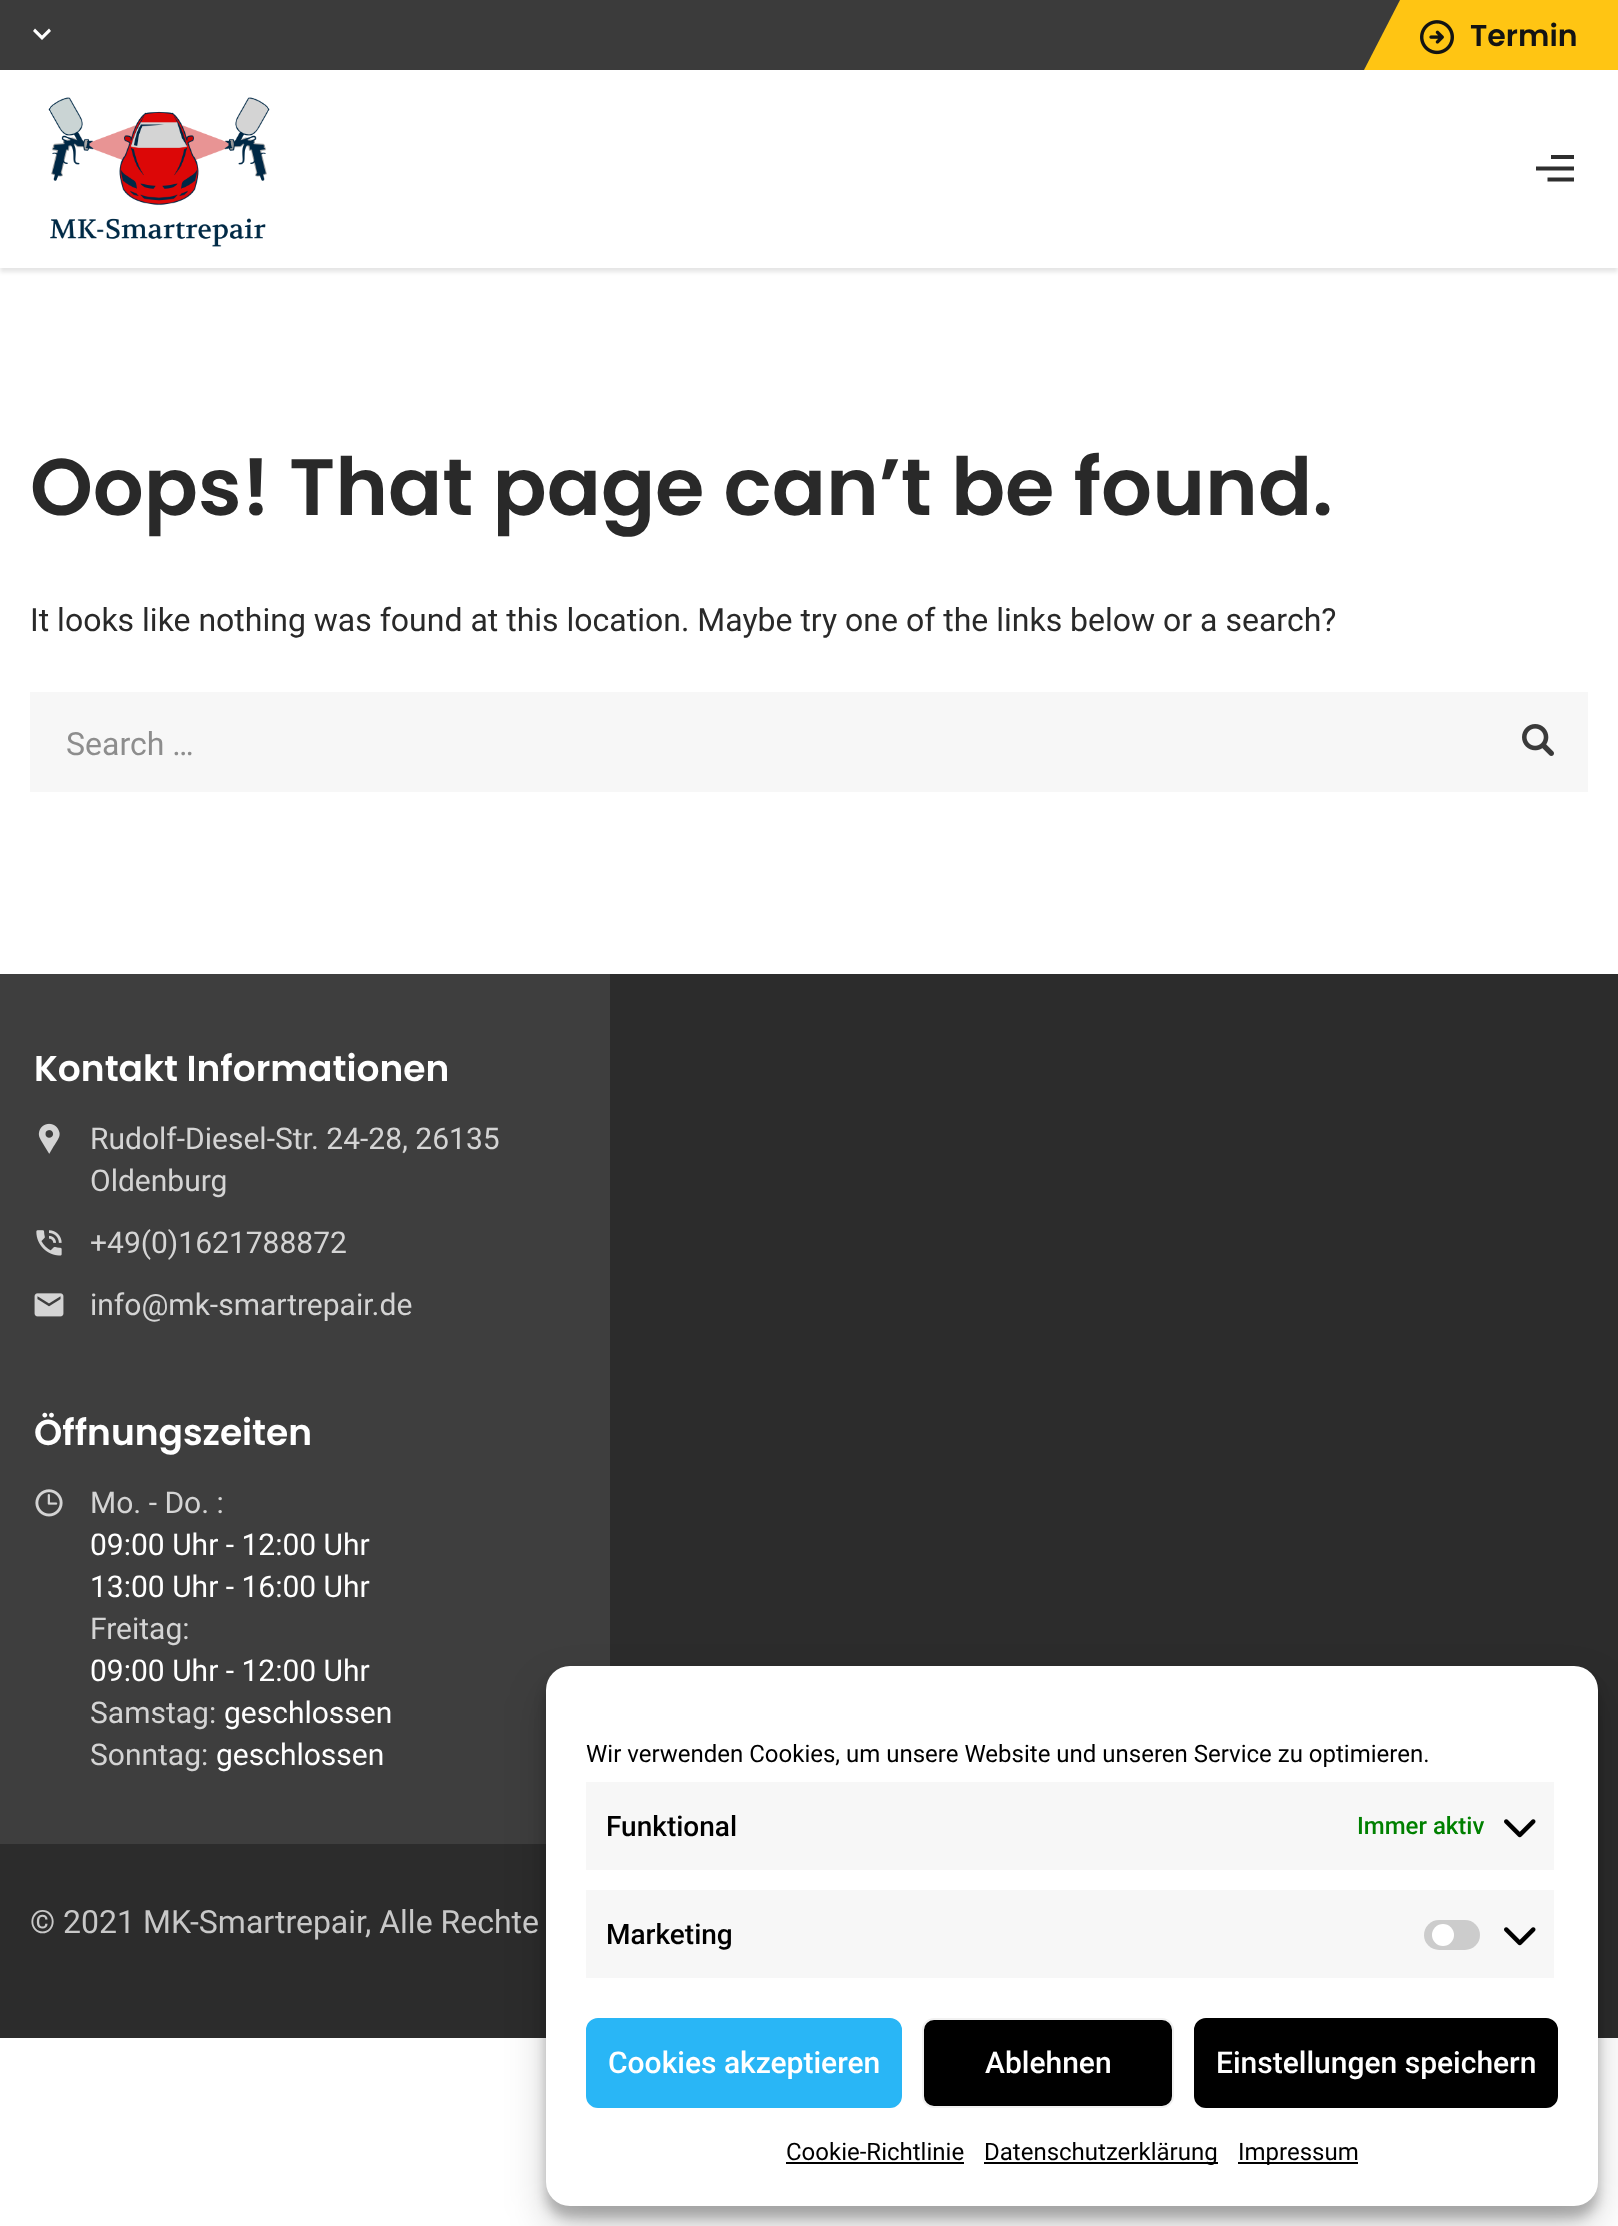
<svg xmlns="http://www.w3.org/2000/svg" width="1618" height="2226">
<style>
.a{font:600 30px Poppins;fill:#131313}
.b{font:600 80px Poppins;fill:#292929}
.c{font:32px Roboto;fill:#292929}
.d{font:32px Roboto;fill:#8d8d8d}
.e{font:600 36px Poppins;fill:#fff}
.f{font:30px Roboto;fill:#d4d4d4}
.g{font:30px Roboto;fill:#fff}
.h{font:32px Roboto;fill:#c8c8c8}
.i{font:24px Roboto;fill:#000}
.j{font:500 28px Roboto;fill:#000}
.k{font:500 24px Roboto;fill:#008000}
.l{font:500 30px Roboto;fill:#fff}
</style>
<rect width="100%" height="100%" fill="#fff"/>
<path fill="#0000001a" filter="blur(2px)" d="M0 4h1618v268H0z"/>
<path fill="#fff" d="M0 70h1618v198H0z"/>
<path fill="#3b3b3b" d="M0 0h1400v70H0z"/>
<path fill="#fff" d="M35 28.5l7 7l7-7l2 2.5l-9 9l-9-9z"/>
<path fill="#ffc513" d="M1400 0h218v70H1400z"/>
<path fill="#ffc513" d="M1400 0v70h-36z"/>
<image href="1.png" x="1420" y="20" width="34" height="35"/>
<image href="2.png" x="48" y="97" width="222" height="150"/>
<path fill="#2e2e2e" d="M1574 159h-23v-4h23zm0 7.5h-38v4h38zm0 11h-26.5v4h26.5z"/>
<path fill="#f7f7f7" d="M30 692h1558v100H30z"/>
<image href="3.png" x="1522" y="724" width="32" height="32"/>
<path fill="#2c2c2c" d="M0 974h1618v1064H0z"/>
<path fill="#3e3e3e" d="M0 974h610v870H0z"/>
<image href="4.png" x="38" y="1123" width="22" height="31"/>
<image href="5.png" x="36" y="1230" width="26" height="26"/>
<image href="6.png" x="34" y="1293" width="30" height="24"/>
<image href="7.png" x="35" y="1489" width="28" height="28"/>
<rect fill="#0000003b" filter="blur(6px)" x="546" y="1678" width="1052" height="540" rx="24"/>
<rect fill="#00000030" filter="blur(20px)" x="546" y="1686" width="1052" height="540" rx="24"/>
<rect fill="#fff" x="546" y="1666" width="1052" height="540" rx="24"/>
<path fill="#f7f7f7" d="M586 1782h968v88H586z"/>
<image href="8.png" x="1504" y="1819" width="32" height="19"/>
<path fill="#f7f7f7" d="M586 1890h968v88H586z"/>
<rect fill="#ccc" x="1424" y="1920" width="56" height="30" rx="15"/>
<circle fill="#fff" cx="1443" cy="1935" r="11"/>
<image href="8.png" x="1504" y="1927" width="32" height="19"/>
<rect fill="#29b6f6" stroke="#29b6f6" stroke-width="2" x="587" y="2019" width="314" height="88" rx="11"/>
<rect fill="#000" stroke="#f1f1f1" stroke-width="2" x="923" y="2019" width="250" height="88" rx="11"/>
<rect fill="#000" stroke="#000" stroke-width="2" x="1195" y="2019" width="362" height="88" rx="11"/>
<path fill="#000" d="M786 2162h178v2H786z"/>
<path fill="#000" d="M984 2162h234v2H984z"/>
<path fill="#000" d="M1238 2162h120v2H1238z"/>
<text class="a" x="1470" y="46">Termin</text>
<text class="b" x="30" y="515">Oops! That page can’t be found.</text>
<text class="c" x="30" y="631">It looks like nothing was found at this location. Maybe try one of the links below or a search?</text>
<text class="d" x="66" y="755">Search …</text>
<text class="e" x="34" y="1081">Kontakt Informationen</text>
<text class="f" x="90" y="1149">Rudolf-Diesel-Str. 24-28, 26135</text>
<text class="f" x="90" y="1191">Oldenburg</text>
<text class="f" x="90" y="1253">+49(0)1621788872</text>
<text class="f" x="90" y="1315">info@mk-smartrepair.de</text>
<text class="e" x="34" y="1445">Öffnungszeiten</text>
<text class="f" x="90" y="1513">Mo. - Do. :</text>
<text class="g" x="90" y="1555">09:00 Uhr - 12:00 Uhr</text>
<text class="g" x="90" y="1597">13:00 Uhr - 16:00 Uhr</text>
<text class="f" x="90" y="1639">Freitag:</text>
<text class="g" x="90" y="1681">09:00 Uhr - 12:00 Uhr</text>
<text class="f" x="90" y="1723">Samstag:</text>
<text class="g" x="224" y="1723">geschlossen</text>
<text class="f" x="90" y="1765">Sonntag:</text>
<text class="g" x="216" y="1765">geschlossen</text>
<text class="h" x="30" y="1933">© 2021 MK-Smartrepair, Alle Rechte</text>
<text class="i" x="586" y="1762">Wir verwenden Cookies, um unsere Website und unseren Service zu optimieren.</text>
<text class="j" x="606" y="1836">Funktional</text>
<text class="k" x="1357" y="1834">Immer aktiv</text>
<text class="j" x="606" y="1944">Marketing</text>
<text class="l" x="608" y="2073">Cookies akzeptieren</text>
<text class="l" x="985" y="2073">Ablehnen</text>
<text class="l" x="1216" y="2073">Einstellungen speichern</text>
<text class="i" x="786" y="2160">Cookie-Richtlinie</text>
<text class="i" x="984" y="2160">Datenschutzerklärung</text>
<text class="i" x="1238" y="2160">Impressum</text>
</svg>
